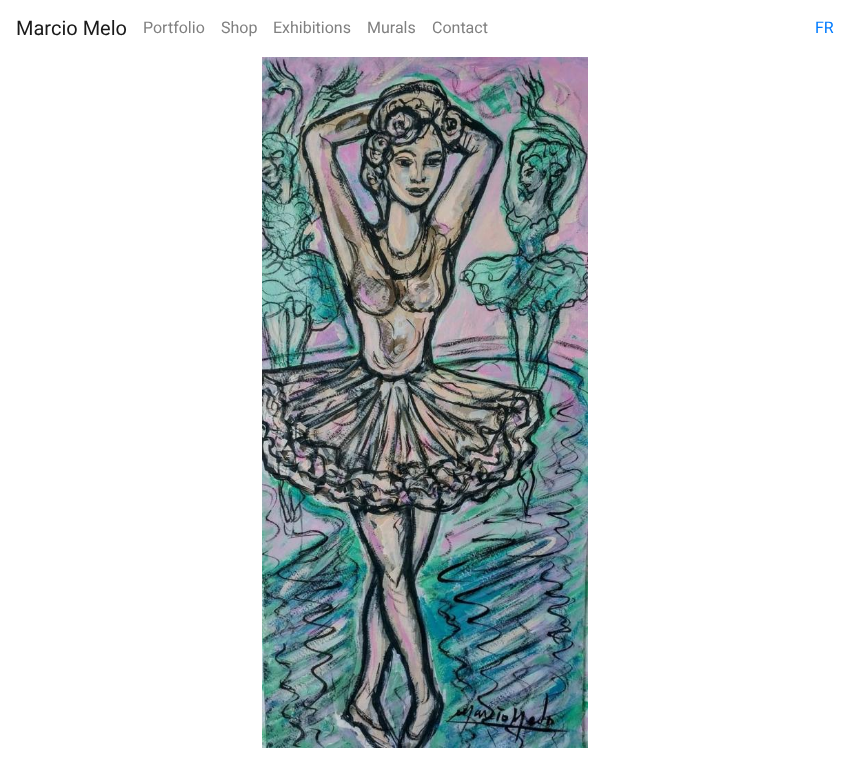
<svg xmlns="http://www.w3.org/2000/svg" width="850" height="768">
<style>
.a{font:20px Roboto;fill:#1a1a1a}
.b{font:16px Roboto;fill:#808080}
.c{font:16px Roboto;fill:#007bff}
</style>
<rect width="100%" height="100%" fill="#fff"/>
<image href="1.png" x="262" y="57" width="326" height="691"/>
<text class="a" x="16" y="35">Marcio Melo</text>
<text class="b" x="143" y="33">Portfolio</text>
<text class="b" x="221" y="33">Shop</text>
<text class="b" x="273" y="33">Exhibitions</text>
<text class="b" x="367" y="33">Murals</text>
<text class="b" x="432" y="33">Contact</text>
<text class="c" x="815" y="33">FR</text>
</svg>
